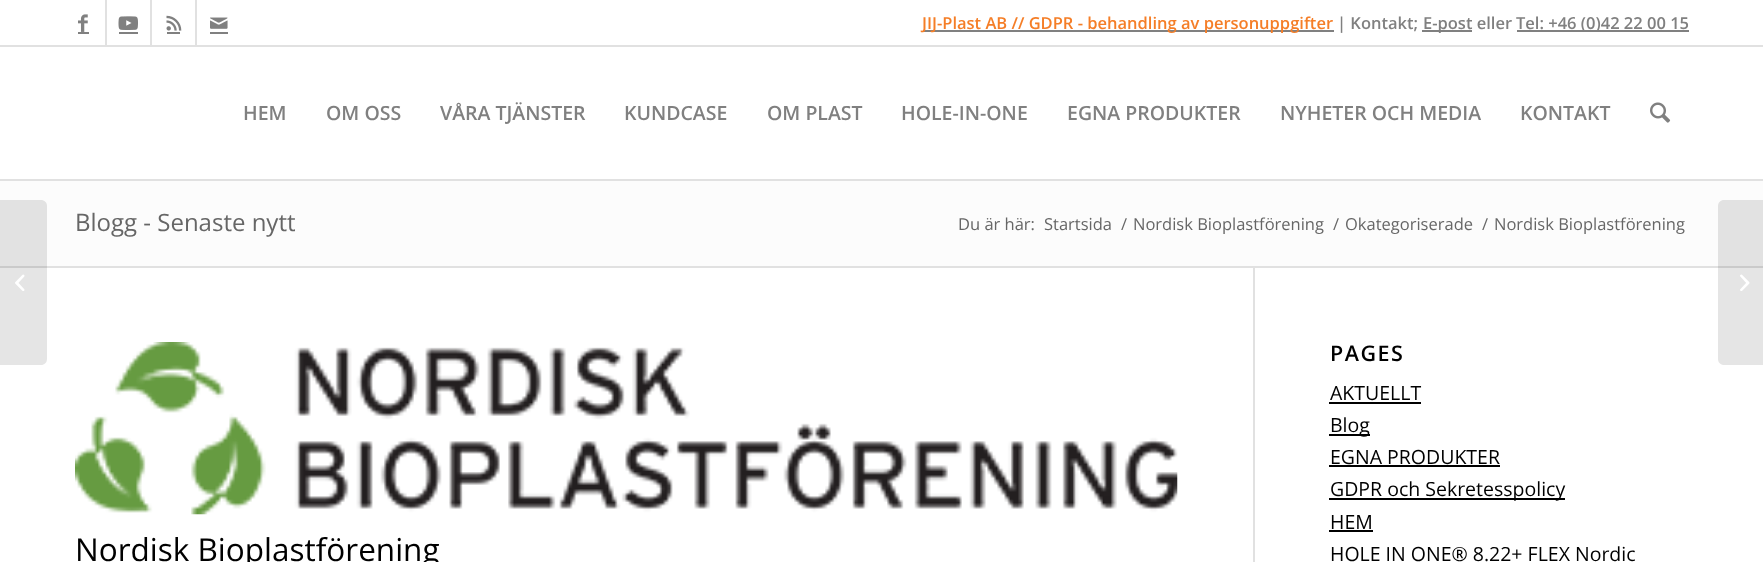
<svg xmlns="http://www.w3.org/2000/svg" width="1763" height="562">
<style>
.a{font:600 16.5px Open Sans;fill:#f57e27}
.b{font:600 16.5px Open Sans;fill:#808080}
.c{font:600 19.5px Open Sans;fill:#808080}
.d{font:24px Open Sans;fill:#666}
.e{font:16.5px Open Sans;fill:#666}
.f{font:31.5px Open Sans;fill:#000}
.g{font:600 21.5px Open Sans;letter-spacing:1.5px;fill:#000}
.h{font:19.5px Open Sans;fill:#000}
</style>
<rect width="100%" height="100%" fill="#fff"/>
<path fill="#e1e1e1" d="M0 45h1763v2H0z"/>
<path fill="#e1e1e1" d="M105 0h2v45H105z"/>
<image href="1.png" x="78" y="14" width="10" height="18"/>
<path fill="#808080" d="M78 32h11v2H78z"/>
<path fill="#e1e1e1" d="M150 0h2v45H150z"/>
<image href="2.png" x="118" y="16" width="20" height="14"/>
<path fill="#808080" d="M119 32h19v2H119z"/>
<path fill="#e1e1e1" d="M195 0h2v45H195z"/>
<image href="3.png" x="166" y="15" width="16" height="16"/>
<path fill="#808080" d="M167 32h13v2H167z"/>
<image href="4.png" x="210" y="17" width="18" height="12"/>
<path fill="#808080" d="M210 32h18v2H210z"/>
<path fill="#808080" d="M923 30h411v2H923z"/>
<path fill="#808080" d="M1422 30h50v2H1422z"/>
<path fill="#808080" d="M1517 30h172v2H1517z"/>
<path fill="#e1e1e1" d="M0 179h1763v2H0z"/>
<image href="5.png" x="1650" y="102" width="21" height="21"/>
<path fill="#fcfcfc" d="M0 181h1763v85H0z"/>
<path fill="#e1e1e1" d="M0 266h1763v2H0z"/>
<path fill="#0000001a" d="M0 200h41c3.5 0 6 2.5 6 6v153c0 3.5-2.5 6-6 6h-41z"/>
<image href="6.png" x="15" y="274" width="10" height="17"/>
<path fill="#e1e1e1" d="M1253 267h2v295H1253z"/>
<image href="7.png" x="75" y="342" width="1103" height="173"/>
<path fill="#000" d="M1329 402h92v2H1329z"/>
<path fill="#000" d="M1329 434h41v2H1329z"/>
<path fill="#000" d="M1329 465h171v2H1329z"/>
<path fill="#000" d="M1329 498h236v2H1329z"/>
<path fill="#000" d="M1329 530h44v2H1329z"/>
<path fill="#0000001a" d="M1724 200h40v165h-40c-3.5 0-6-2.5-6-6v-153c0-3.5 2.5-6 6-6z"/>
<image href="8.png" x="1740" y="274" width="10" height="17"/>
<text class="a" x="922" y="29">JIJ-Plast AB // GDPR - behandling av personuppgifter</text>
<text class="b" x="1337" y="29">| Kontakt;</text>
<text class="b" x="1423" y="29">E-post eller</text>
<text class="b" x="1516" y="29">Tel: +46 (0)42 22 00 15</text>
<text class="c" x="243" y="120">HEM</text>
<text class="c" x="326" y="120">OM OSS</text>
<text class="c" x="440" y="120">VÅRA TJÄNSTER</text>
<text class="c" x="624" y="120">KUNDCASE</text>
<text class="c" x="767" y="120">OM PLAST</text>
<text class="c" x="901" y="120">HOLE-IN-ONE</text>
<text class="c" x="1067" y="120">EGNA PRODUKTER</text>
<text class="c" x="1280" y="120">NYHETER OCH MEDIA</text>
<text class="c" x="1520" y="120">KONTAKT</text>
<text class="d" x="75" y="231">Blogg - Senaste nytt</text>
<text class="e" x="958" y="230">Du är här:</text>
<text class="e" x="1044" y="230">Startsida</text>
<text class="e" x="1121" y="230">/</text>
<text class="e" x="1133" y="230">Nordisk Bioplastförening</text>
<text class="e" x="1333" y="230">/</text>
<text class="e" x="1345" y="230">Okategoriserade</text>
<text class="e" x="1482" y="230">/</text>
<text class="e" x="1494" y="230">Nordisk Bioplastförening</text>
<text class="f" x="75" y="561">Nordisk Bioplastförening</text>
<text class="g" x="1330" y="361">PAGES</text>
<text class="h" x="1330" y="400">AKTUELLT</text>
<text class="h" x="1330" y="432">Blog</text>
<text class="h" x="1330" y="464">EGNA PRODUKTER</text>
<text class="h" x="1330" y="496">GDPR och Sekretesspolicy</text>
<text class="h" x="1330" y="529">HEM</text>
<text class="h" x="1330" y="561">HOLE IN ONE® 8.22+ FLEX Nordic</text>
</svg>
